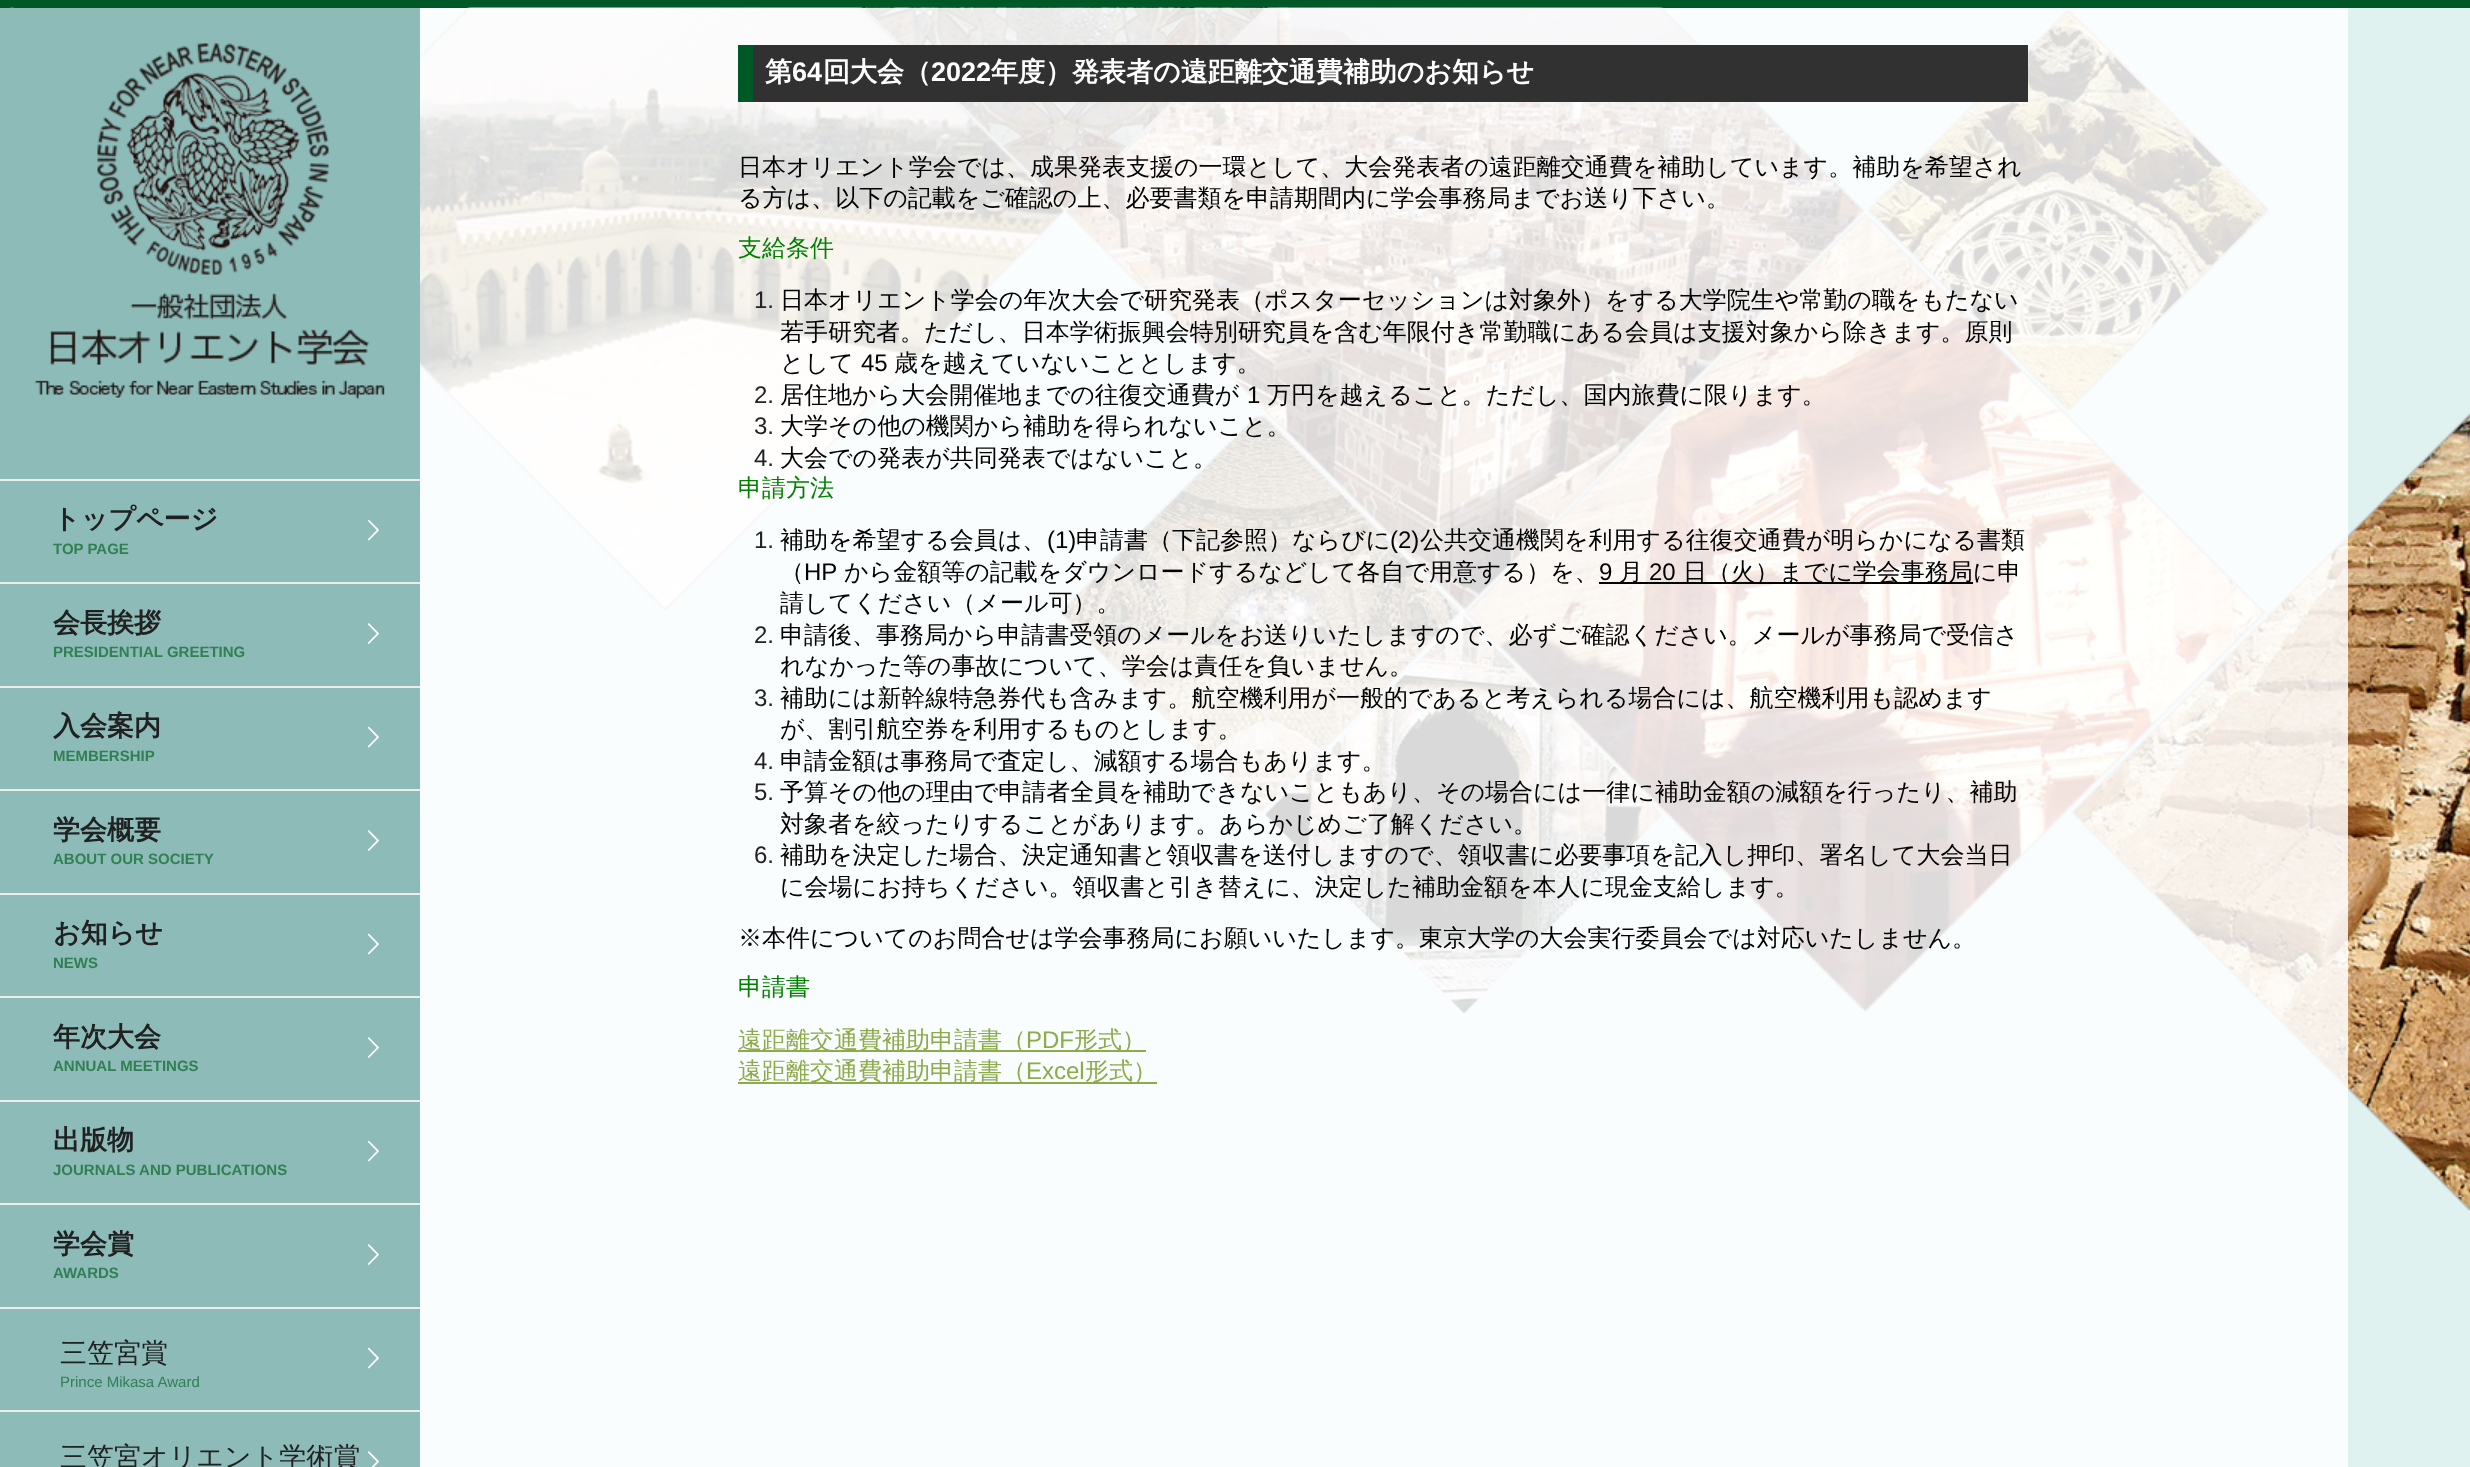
<svg xmlns="http://www.w3.org/2000/svg" width="2470" height="1467">
<style>
.a{font:bold 27px WenQuanYi Zen Hei;fill:#212121}
.b{font:bold 15px Liberation Sans;fill:#317f53}
.c{font:500 27px WenQuanYi Zen Hei;fill:#212121}
.d{font:15px Liberation Sans;fill:#317f53}
.e{font:bold 27px WenQuanYi Zen Hei;fill:#fff}
.f{font:bold 27px Liberation Sans;fill:#fff}
.g{font:500 24px WenQuanYi Zen Hei;fill:#000}
.h{font:500 24px WenQuanYi Zen Hei;fill:#008000}
.i{font:24px Liberation Sans;fill:#212121}
.j{font:24px Liberation Sans;fill:#000}
.k{font:500 24px WenQuanYi Zen Hei;fill:#8cab4a}
.l{font:24px Liberation Sans;fill:#8cab4a}
</style>
<rect width="100%" height="100%" fill="#e0f2f0"/>
<path fill="#fafdfd" d="M420 8h1928v1459H420z"/>
<path fill="#005826" d="M0 0h2470v8H0z"/>
<image href="1.png" x="10" y="7" width="2460" height="1204"/>
<path fill="#8cbbb8" d="M0 8h420v1459H0z"/>
<image href="2.png" x="34" y="43" width="351" height="357"/>
<path fill="#ededed" d="M0 479h420v2H0z"/>
<path fill="#ededed" d="M0 582h420v2H0z"/>
<image href="3.png" x="367" y="519" width="12" height="22"/>
<path fill="#ededed" d="M0 686h420v2H0z"/>
<image href="4.png" x="367" y="623" width="12" height="21"/>
<path fill="#ededed" d="M0 789h420v2H0z"/>
<image href="3.png" x="367" y="726" width="12" height="22"/>
<path fill="#ededed" d="M0 893h420v2H0z"/>
<image href="4.png" x="367" y="830" width="12" height="21"/>
<path fill="#ededed" d="M0 996h420v2H0z"/>
<image href="3.png" x="367" y="933" width="12" height="22"/>
<path fill="#ededed" d="M0 1100h420v2H0z"/>
<image href="4.png" x="367" y="1037" width="12" height="21"/>
<path fill="#ededed" d="M0 1203h420v2H0z"/>
<image href="3.png" x="367" y="1140" width="12" height="22"/>
<path fill="#ededed" d="M0 1307h420v2H0z"/>
<image href="4.png" x="367" y="1244" width="12" height="21"/>
<path fill="#ededed" d="M0 1410h420v2H0z"/>
<image href="3.png" x="367" y="1347" width="12" height="22"/>
<image href="5.png" x="367" y="1451" width="12" height="16"/>
<path fill="#313131" d="M753 45h1275v57H753z"/>
<path fill="#005826" d="M738 45h15v57H738z"/>
<path fill="#000" d="M1599 582h374v2H1599z"/>
<path fill="#8cab4a" d="M738 1050h408v2H738z"/>
<path fill="#8cab4a" d="M738 1082h419v2H738z"/>
<text class="a" x="53" y="528">トップページ</text>
<text class="b" x="53" y="554">TOP PAGE</text>
<text class="a" x="53" y="632">会長挨拶</text>
<text class="b" x="53" y="657">PRESIDENTIAL GREETING</text>
<text class="a" x="53" y="735">入会案内</text>
<text class="b" x="53" y="761">MEMBERSHIP</text>
<text class="a" x="53" y="839">学会概要</text>
<text class="b" x="53" y="864">ABOUT OUR SOCIETY</text>
<text class="a" x="53" y="942">お知らせ</text>
<text class="b" x="53" y="968">NEWS</text>
<text class="a" x="53" y="1046">年次大会</text>
<text class="b" x="53" y="1071">ANNUAL MEETINGS</text>
<text class="a" x="53" y="1149">出版物</text>
<text class="b" x="53" y="1175">JOURNALS AND PUBLICATIONS</text>
<text class="a" x="53" y="1253">学会賞</text>
<text class="b" x="53" y="1278">AWARDS</text>
<text class="c" x="60" y="1362">三笠宮賞</text>
<text class="d" x="60" y="1387">Prince Mikasa Award</text>
<text class="c" x="60" y="1466">三笠宮オリエント学術賞</text>
<text class="e" x="765" y="81">第</text>
<text class="f" x="792" y="81">64</text>
<text class="e" x="823" y="81">回大会（</text>
<text class="f" x="931" y="81">2022</text>
<text class="e" x="991" y="81">年度）発表者の遠距離交通費補助のお知らせ</text>
<text class="g" x="738" y="175">日本オリエント学会では、成果発表支援の一環として、大会発表者の遠距離交通費を補助しています。補助を希望され</text>
<text class="g" x="738" y="206">る方は、以下の記載をご確認の上、必要書類を申請期間内に学会事務局までお送り下さい。</text>
<text class="h" x="738" y="256">支給条件</text>
<text class="i" x="754" y="308">1.</text>
<text class="g" x="780" y="308">日本オリエント学会の年次大会で研究発表（ポスターセッションは対象外）をする大学院生や常勤の職をもたない</text>
<text class="g" x="780" y="340">若手研究者。ただし、日本学術振興会特別研究員を含む年限付き常勤職にある会員は支援対象から除きます。原則</text>
<text class="g" x="780" y="371">として</text>
<text class="j" x="861" y="371">45</text>
<text class="g" x="894" y="371">歳を越えていないこととします。</text>
<text class="i" x="754" y="403">2.</text>
<text class="g" x="780" y="403">居住地から大会開催地までの往復交通費が</text>
<text class="j" x="1247" y="403">1</text>
<text class="g" x="1267" y="403">万円を越えること。ただし、国内旅費に限ります。</text>
<text class="i" x="754" y="434">3.</text>
<text class="g" x="780" y="434">大学その他の機関から補助を得られないこと。</text>
<text class="i" x="754" y="466">4.</text>
<text class="g" x="780" y="466">大会での発表が共同発表ではないこと。</text>
<text class="h" x="738" y="496">申請方法</text>
<text class="i" x="754" y="548">1.</text>
<text class="g" x="780" y="548">補助を希望する会員は、</text>
<text class="j" x="1047" y="548">(1)</text>
<text class="g" x="1076" y="548">申請書（下記参照）ならびに</text>
<text class="j" x="1390" y="548">(2)</text>
<text class="g" x="1420" y="548">公共交通機関を利用する往復交通費が明らかになる書類</text>
<text class="g" x="780" y="580">（</text>
<text class="j" x="804" y="580">HP</text>
<text class="g" x="844" y="580">から金額等の記載をダウンロードするなどして各自で用意する）を、</text>
<text class="j" x="1599" y="580">9</text>
<text class="g" x="1619" y="580">月</text>
<text class="j" x="1649" y="580">20</text>
<text class="g" x="1683" y="580">日（火）までに学会事務局に申</text>
<text class="g" x="780" y="611">請してください（メール可）。</text>
<text class="i" x="754" y="643">2.</text>
<text class="g" x="780" y="643">申請後、事務局から申請書受領のメールをお送りいたしますので、必ずご確認ください。メールが事務局で受信さ</text>
<text class="g" x="780" y="674">れなかった等の事故について、学会は責任を負いません。</text>
<text class="i" x="754" y="706">3.</text>
<text class="g" x="780" y="706">補助には新幹線特急券代も含みます。航空機利用が一般的であると考えられる場合には、航空機利用も認めます</text>
<text class="g" x="780" y="737">が、割引航空券を利用するものとします。</text>
<text class="i" x="754" y="769">4.</text>
<text class="g" x="780" y="769">申請金額は事務局で査定し、減額する場合もあります。</text>
<text class="i" x="754" y="800">5.</text>
<text class="g" x="780" y="800">予算その他の理由で申請者全員を補助できないこともあり、その場合には一律に補助金額の減額を行ったり、補助</text>
<text class="g" x="780" y="832">対象者を絞ったりすることがあります。あらかじめご了解ください。</text>
<text class="i" x="754" y="863">6.</text>
<text class="g" x="780" y="863">補助を決定した場合、決定通知書と領収書を送付しますので、領収書に必要事項を記入し押印、署名して大会当日</text>
<text class="g" x="780" y="895">に会場にお持ちください。領収書と引き替えに、決定した補助金額を本人に現金支給します。</text>
<text class="g" x="738" y="946">※本件についてのお問合せは学会事務局にお願いいたします。東京大学の大会実行委員会では対応いたしません。</text>
<text class="h" x="738" y="995">申請書</text>
<text class="k" x="738" y="1048">遠距離交通費補助申請書（</text>
<text class="l" x="1026" y="1048">PDF</text>
<text class="k" x="1074" y="1048">形式）</text>
<text class="k" x="738" y="1079">遠距離交通費補助申請書（</text>
<text class="l" x="1026" y="1079">Excel</text>
<text class="k" x="1085" y="1079">形式）</text>
</svg>
